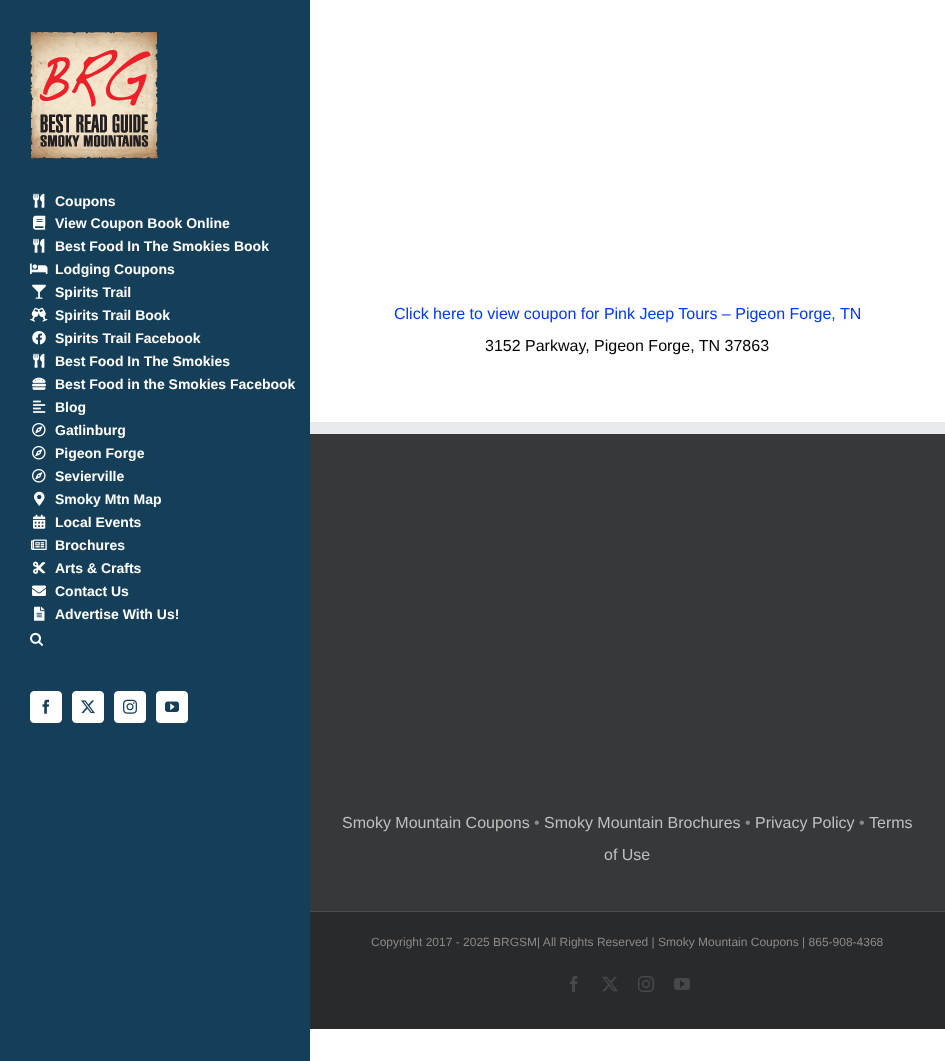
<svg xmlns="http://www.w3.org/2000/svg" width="945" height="1061">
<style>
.a{font:bold 14px Liberation Sans;fill:#fff}
.b{font:16px Liberation Sans;fill:#0238f9}
.c{font:16px Liberation Sans;fill:#020202}
.d{font:16px Liberation Sans;fill:#bfbfbf}
.e{font:16px Liberation Sans;fill:#8c8989}
.f{font:12px Liberation Sans;fill:#8c8989}
</style>
<rect width="100%" height="100%" fill="#fff"/>
<path fill="#153f58" d="M0 0h310v1061H0z"/>
<image href="1.png" x="30" y="32" width="128" height="127"/>
<image href="2.png" x="33" y="193" width="12" height="15"/>
<image href="3.png" x="33" y="215" width="13" height="15"/>
<image href="2.png" x="33" y="238" width="12" height="15"/>
<image href="4.png" x="30" y="263" width="18" height="11"/>
<image href="5.png" x="32" y="284" width="14" height="15"/>
<image href="6.png" x="30" y="307" width="18" height="15"/>
<image href="7.png" x="32" y="331" width="14" height="14"/>
<image href="2.png" x="33" y="353" width="12" height="15"/>
<image href="8.png" x="32" y="377" width="14" height="13"/>
<image href="9.png" x="33" y="400" width="13" height="13"/>
<image href="10.png" x="32" y="423" width="14" height="14"/>
<image href="10.png" x="32" y="446" width="14" height="14"/>
<image href="10.png" x="32" y="469" width="14" height="14"/>
<image href="11.png" x="34" y="491" width="11" height="15"/>
<image href="12.png" x="33" y="514" width="13" height="15"/>
<image href="13.png" x="31" y="539" width="16" height="11"/>
<image href="14.png" x="33" y="561" width="13" height="13"/>
<image href="15.png" x="32" y="585" width="14" height="11"/>
<image href="16.png" x="34" y="606" width="11" height="15"/>
<image href="17.png" x="30" y="632" width="13" height="14"/>
<rect fill="#fff" stroke="#fff" x="30.5" y="691.5" width="31" height="31" rx="3.5"/>
<image href="18.png" x="42" y="699" width="8" height="15"/>
<rect fill="#fff" stroke="#fff" x="72.5" y="691.5" width="31" height="31" rx="3.5"/>
<image href="19.png" x="81" y="700" width="14" height="14"/>
<rect fill="#fff" stroke="#fff" x="114.5" y="691.5" width="31" height="31" rx="3.5"/>
<image href="20.png" x="123" y="699" width="14" height="15"/>
<rect fill="#fff" stroke="#fff" x="156.5" y="691.5" width="31" height="31" rx="3.5"/>
<image href="21.png" x="165" y="701" width="14" height="11"/>
<path fill="#363839" d="M310 434h635v477H310z"/>
<path fill="#e9eaee" d="M310 422h635v12H310z"/>
<path fill="#282a2b" d="M310 912h635v117H310z"/>
<path fill="#4b4c4d" d="M310 911h635v1H310z"/>
<image href="22.png" x="570" y="976" width="8" height="16"/>
<image href="23.png" x="602" y="976" width="16" height="16"/>
<image href="24.png" x="638" y="976" width="16" height="16"/>
<image href="25.png" x="674" y="978" width="16" height="12"/>
<text class="a" x="55" y="206">Coupons</text>
<text class="a" x="55" y="228">View Coupon Book Online</text>
<text class="a" x="55" y="251">Best Food In The Smokies Book</text>
<text class="a" x="55" y="274">Lodging Coupons</text>
<text class="a" x="55" y="297">Spirits Trail</text>
<text class="a" x="55" y="320">Spirits Trail Book</text>
<text class="a" x="55" y="343">Spirits Trail Facebook</text>
<text class="a" x="55" y="366">Best Food In The Smokies</text>
<text class="a" x="55" y="389">Best Food in the Smokies Facebook</text>
<text class="a" x="55" y="412">Blog</text>
<text class="a" x="55" y="435">Gatlinburg</text>
<text class="a" x="55" y="458">Pigeon Forge</text>
<text class="a" x="55" y="481">Sevierville</text>
<text class="a" x="55" y="504">Smoky Mtn Map</text>
<text class="a" x="55" y="527">Local Events</text>
<text class="a" x="55" y="550">Brochures</text>
<text class="a" x="55" y="573">Arts &amp; Crafts</text>
<text class="a" x="55" y="596">Contact Us</text>
<text class="a" x="55" y="619">Advertise With Us!</text>
<text class="b" x="394" y="319">Click here to view coupon for Pink Jeep Tours – Pigeon Forge, TN</text>
<text class="c" x="485" y="351">3152 Parkway, Pigeon Forge, TN 37863</text>
<text class="d" x="342" y="828">Smoky Mountain Coupons</text>
<text class="e" x="534" y="828">•</text>
<text class="d" x="544" y="828">Smoky Mountain Brochures</text>
<text class="e" x="745" y="828">•</text>
<text class="d" x="755" y="828">Privacy Policy</text>
<text class="e" x="859" y="828">•</text>
<text class="d" x="869" y="828">Terms</text>
<text class="d" x="604" y="860">of Use</text>
<text class="f" x="371" y="946">Copyright 2017 - 2025 BRGSM| All Rights Reserved | Smoky Mountain Coupons | 865-908-4368</text>
</svg>
